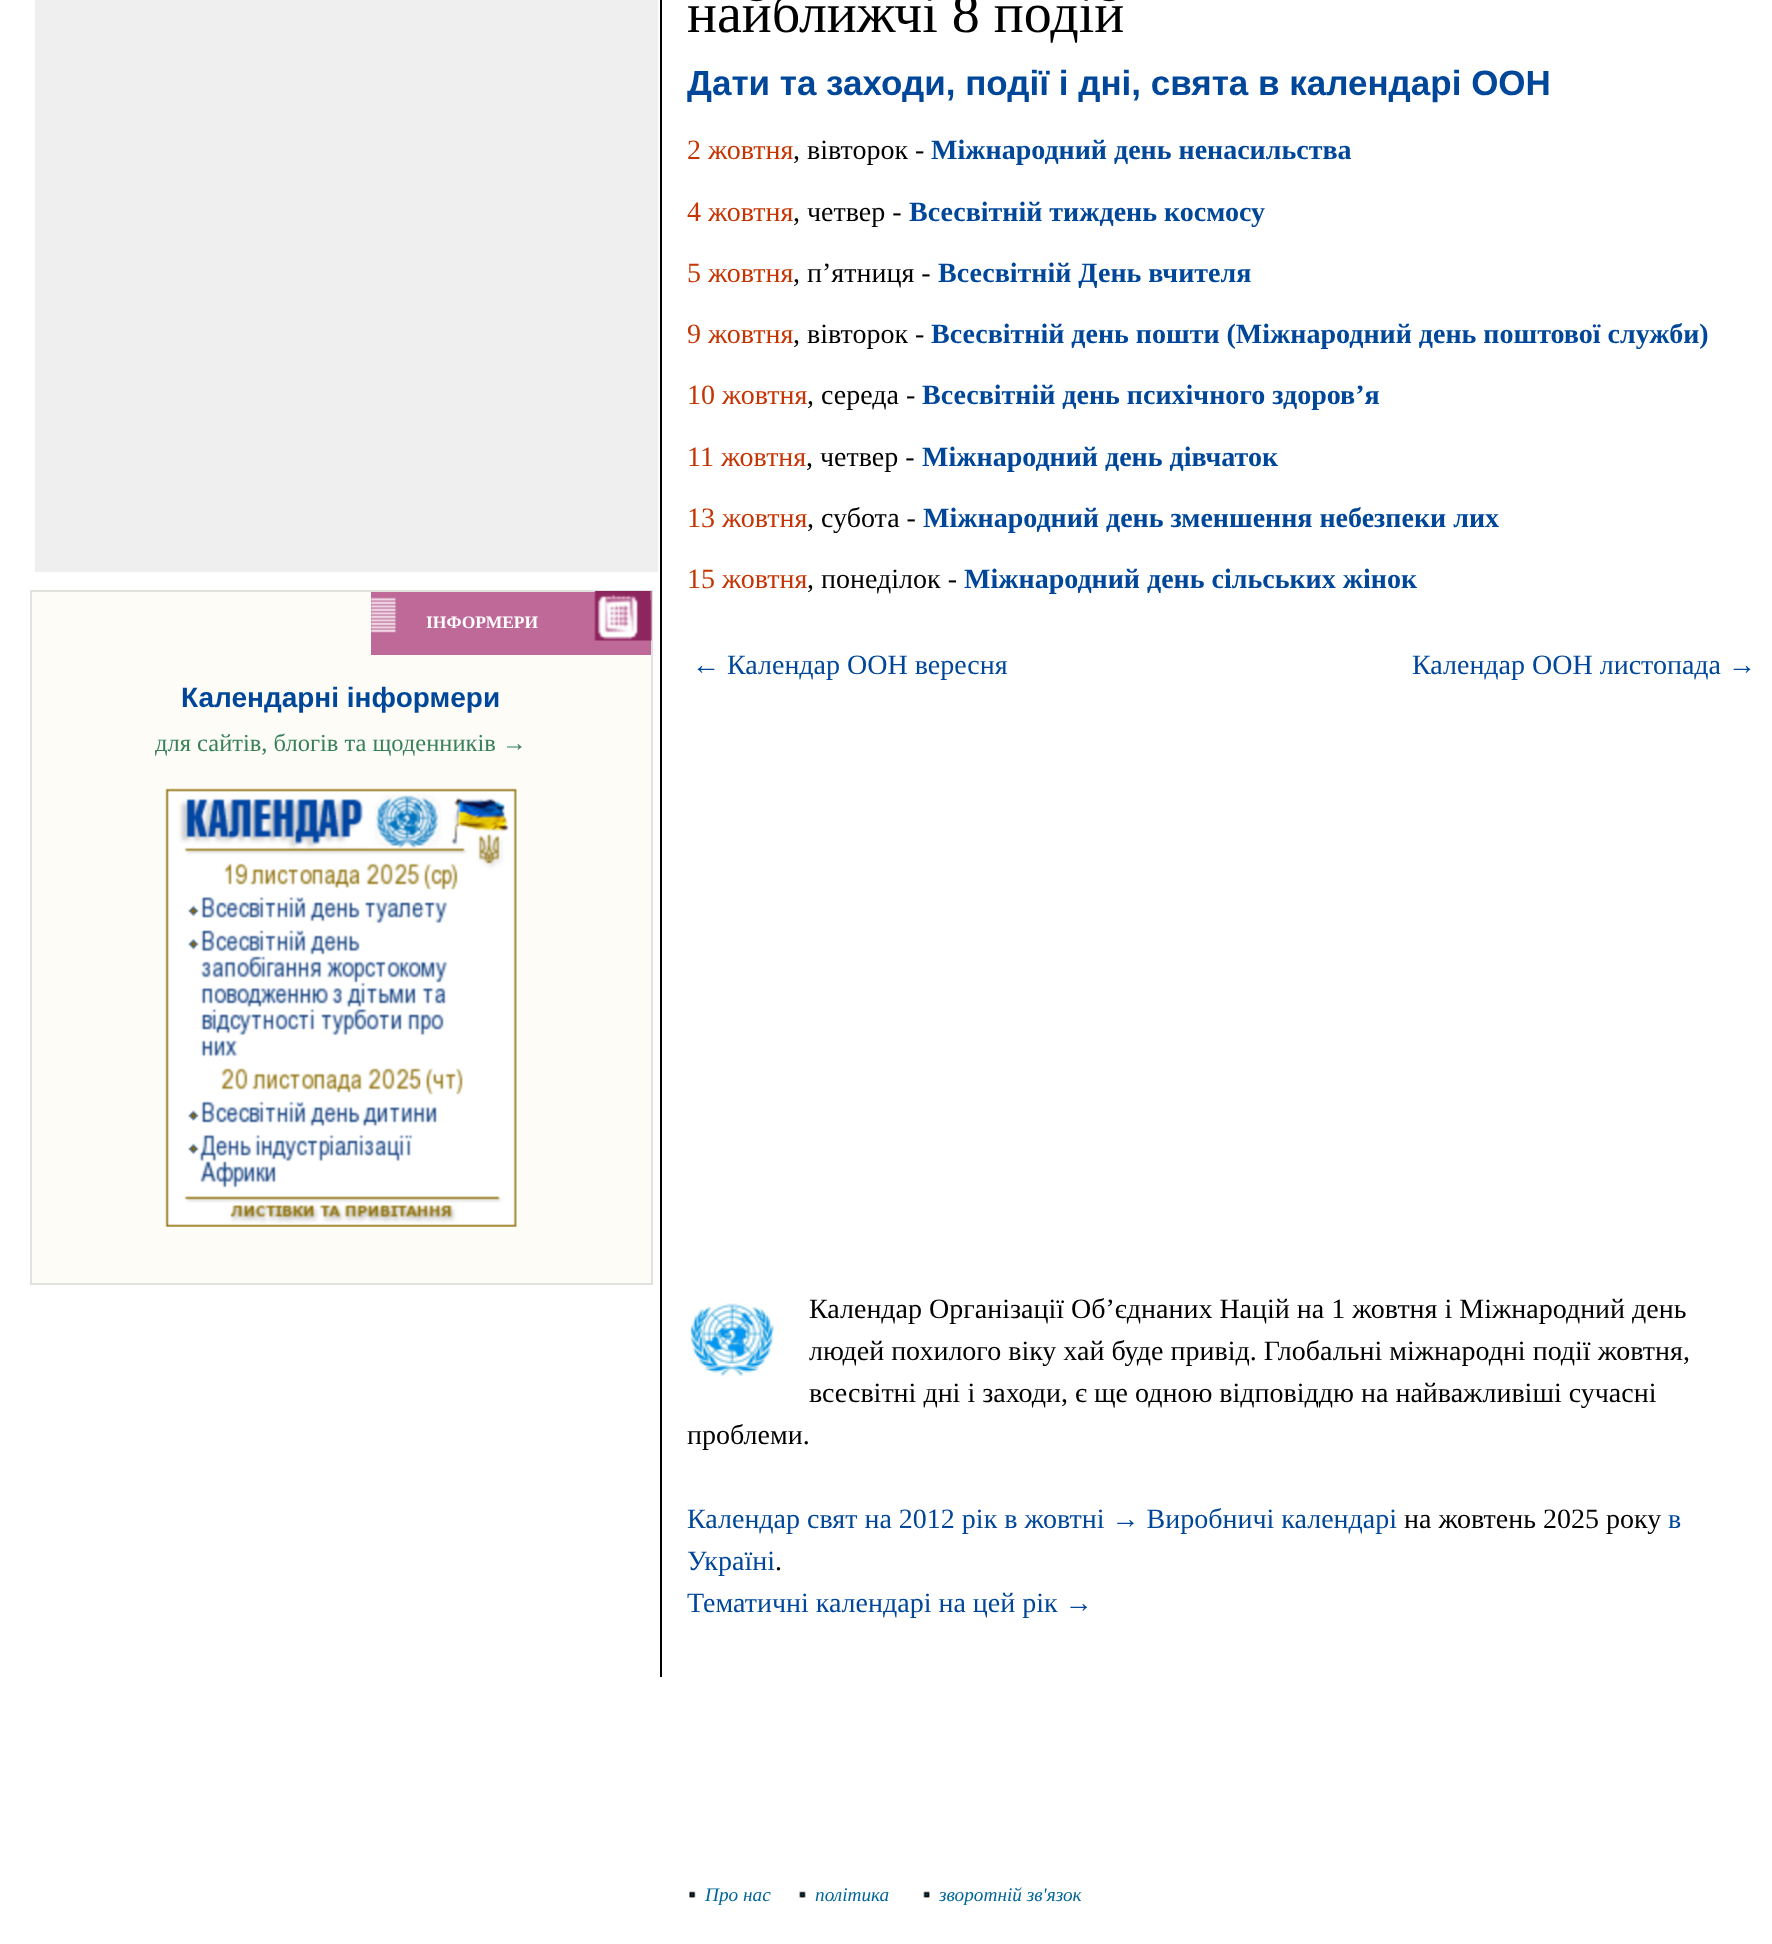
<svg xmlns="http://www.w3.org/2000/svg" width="1772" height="1944">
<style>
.a{font:bold 17.5px Liberation Serif;fill:#fff}
.b{font:bold 28px Liberation Sans;fill:#004799}
.c{font:24.5px Liberation Serif;fill:#378058}
.d{font:bold 24.5px Liberation Serif;fill:#378058}
.e{font:56px Liberation Serif;fill:#000}
.f{font:bold 35px Liberation Sans;fill:#004799}
.g{font:28px Liberation Serif;fill:#c53503}
.h{font:28px Liberation Serif;fill:#000}
.i{font:bold 28px Liberation Serif;fill:#004799}
.j{font:28px Liberation Serif;fill:#004799}
.k{font:italic 19.25px Liberation Serif;fill:#069}
</style>
<rect width="100%" height="100%" fill="#fff"/>
<path fill="#000" d="M660 0h2v1677H660z"/>
<path fill="#efefef" d="M35 0h623v572H35z"/>
<path fill="#fdfcf7" stroke="#e1e1de" stroke-width="2" d="M31 591h621v693H31z"/>
<path fill="#be6997" d="M371 592h269c6 0 11 5 11 11v52h-280z"/>
<image href="1.png" x="371" y="597" width="26" height="36"/>
<image href="2.png" x="594" y="591" width="58" height="50"/>
<image href="3.png" x="165" y="788" width="352" height="439"/>
<image href="4.png" x="689" y="1303" width="85" height="74"/>
<image href="5.png" x="689" y="1891" width="7" height="7"/>
<image href="6.png" x="799" y="1891" width="7" height="7"/>
<image href="7.png" x="923" y="1891" width="7" height="7"/>
<text class="a" x="426" y="628">ІНФОРМЕРИ</text>
<text class="b" x="181" y="707">Календарні інформери</text>
<text class="c" x="155" y="751">для сайтів, блогів та щоденників</text>
<text class="d" x="502" y="751">→</text>
<text class="e" x="687" y="32">найближчі 8 подій</text>
<text class="f" x="687" y="95">Дати та заходи, події і дні, свята в календарі ООН</text>
<text class="g" x="687" y="159">2 жовтня</text>
<text class="h" x="793" y="159">, вівторок -</text>
<text class="i" x="931" y="159">Міжнародний день ненасильства</text>
<text class="g" x="687" y="221">4 жовтня</text>
<text class="h" x="793" y="221">, четвер -</text>
<text class="i" x="909" y="221">Всесвітній тиждень космосу</text>
<text class="g" x="687" y="282">5 жовтня</text>
<text class="h" x="793" y="282">, п’ятниця -</text>
<text class="i" x="938" y="282">Всесвітній День вчителя</text>
<text class="g" x="687" y="343">9 жовтня</text>
<text class="h" x="793" y="343">, вівторок -</text>
<text class="i" x="931" y="343">Всесвітній день пошти (Міжнародний день поштової служби)</text>
<text class="g" x="687" y="404">10 жовтня</text>
<text class="h" x="807" y="404">, середа -</text>
<text class="i" x="922" y="404">Всесвітній день психічного здоров’я</text>
<text class="g" x="687" y="466">11 жовтня</text>
<text class="h" x="806" y="466">, четвер -</text>
<text class="i" x="922" y="466">Міжнародний день дівчаток</text>
<text class="g" x="687" y="527">13 жовтня</text>
<text class="h" x="807" y="527">, субота -</text>
<text class="i" x="923" y="527">Міжнародний день зменшення небезпеки лих</text>
<text class="g" x="687" y="588">15 жовтня</text>
<text class="h" x="807" y="588">, понеділок -</text>
<text class="i" x="964" y="588">Міжнародний день сільських жінок</text>
<text class="j" x="692" y="674">← Календар ООН вересня</text>
<text class="j" x="1412" y="674">Календар ООН листопада →</text>
<text class="h" x="809" y="1318">Календар Організації Об’єднаних Націй на 1 жовтня і Міжнародний день</text>
<text class="h" x="809" y="1360">людей похилого віку хай буде привід. Глобальні міжнародні події жовтня,</text>
<text class="h" x="809" y="1402">всесвітні дні і заходи, є ще одною відповіддю на найважливіші сучасні</text>
<text class="h" x="687" y="1444">проблеми.</text>
<text class="j" x="687" y="1528">Календар свят на 2012 рік в жовтні → Виробничі календарі</text>
<text class="h" x="1404" y="1528">на жовтень 2025 року</text>
<text class="j" x="1668" y="1528">в</text>
<text class="j" x="687" y="1570">Україні</text>
<text class="h" x="775" y="1570">.</text>
<text class="j" x="687" y="1612">Тематичні календарі на цей рік →</text>
<text class="k" x="705" y="1901">Про нас</text>
<text class="k" x="815" y="1901">політика</text>
<text class="k" x="939" y="1901">зворотній зв'язок</text>
</svg>
